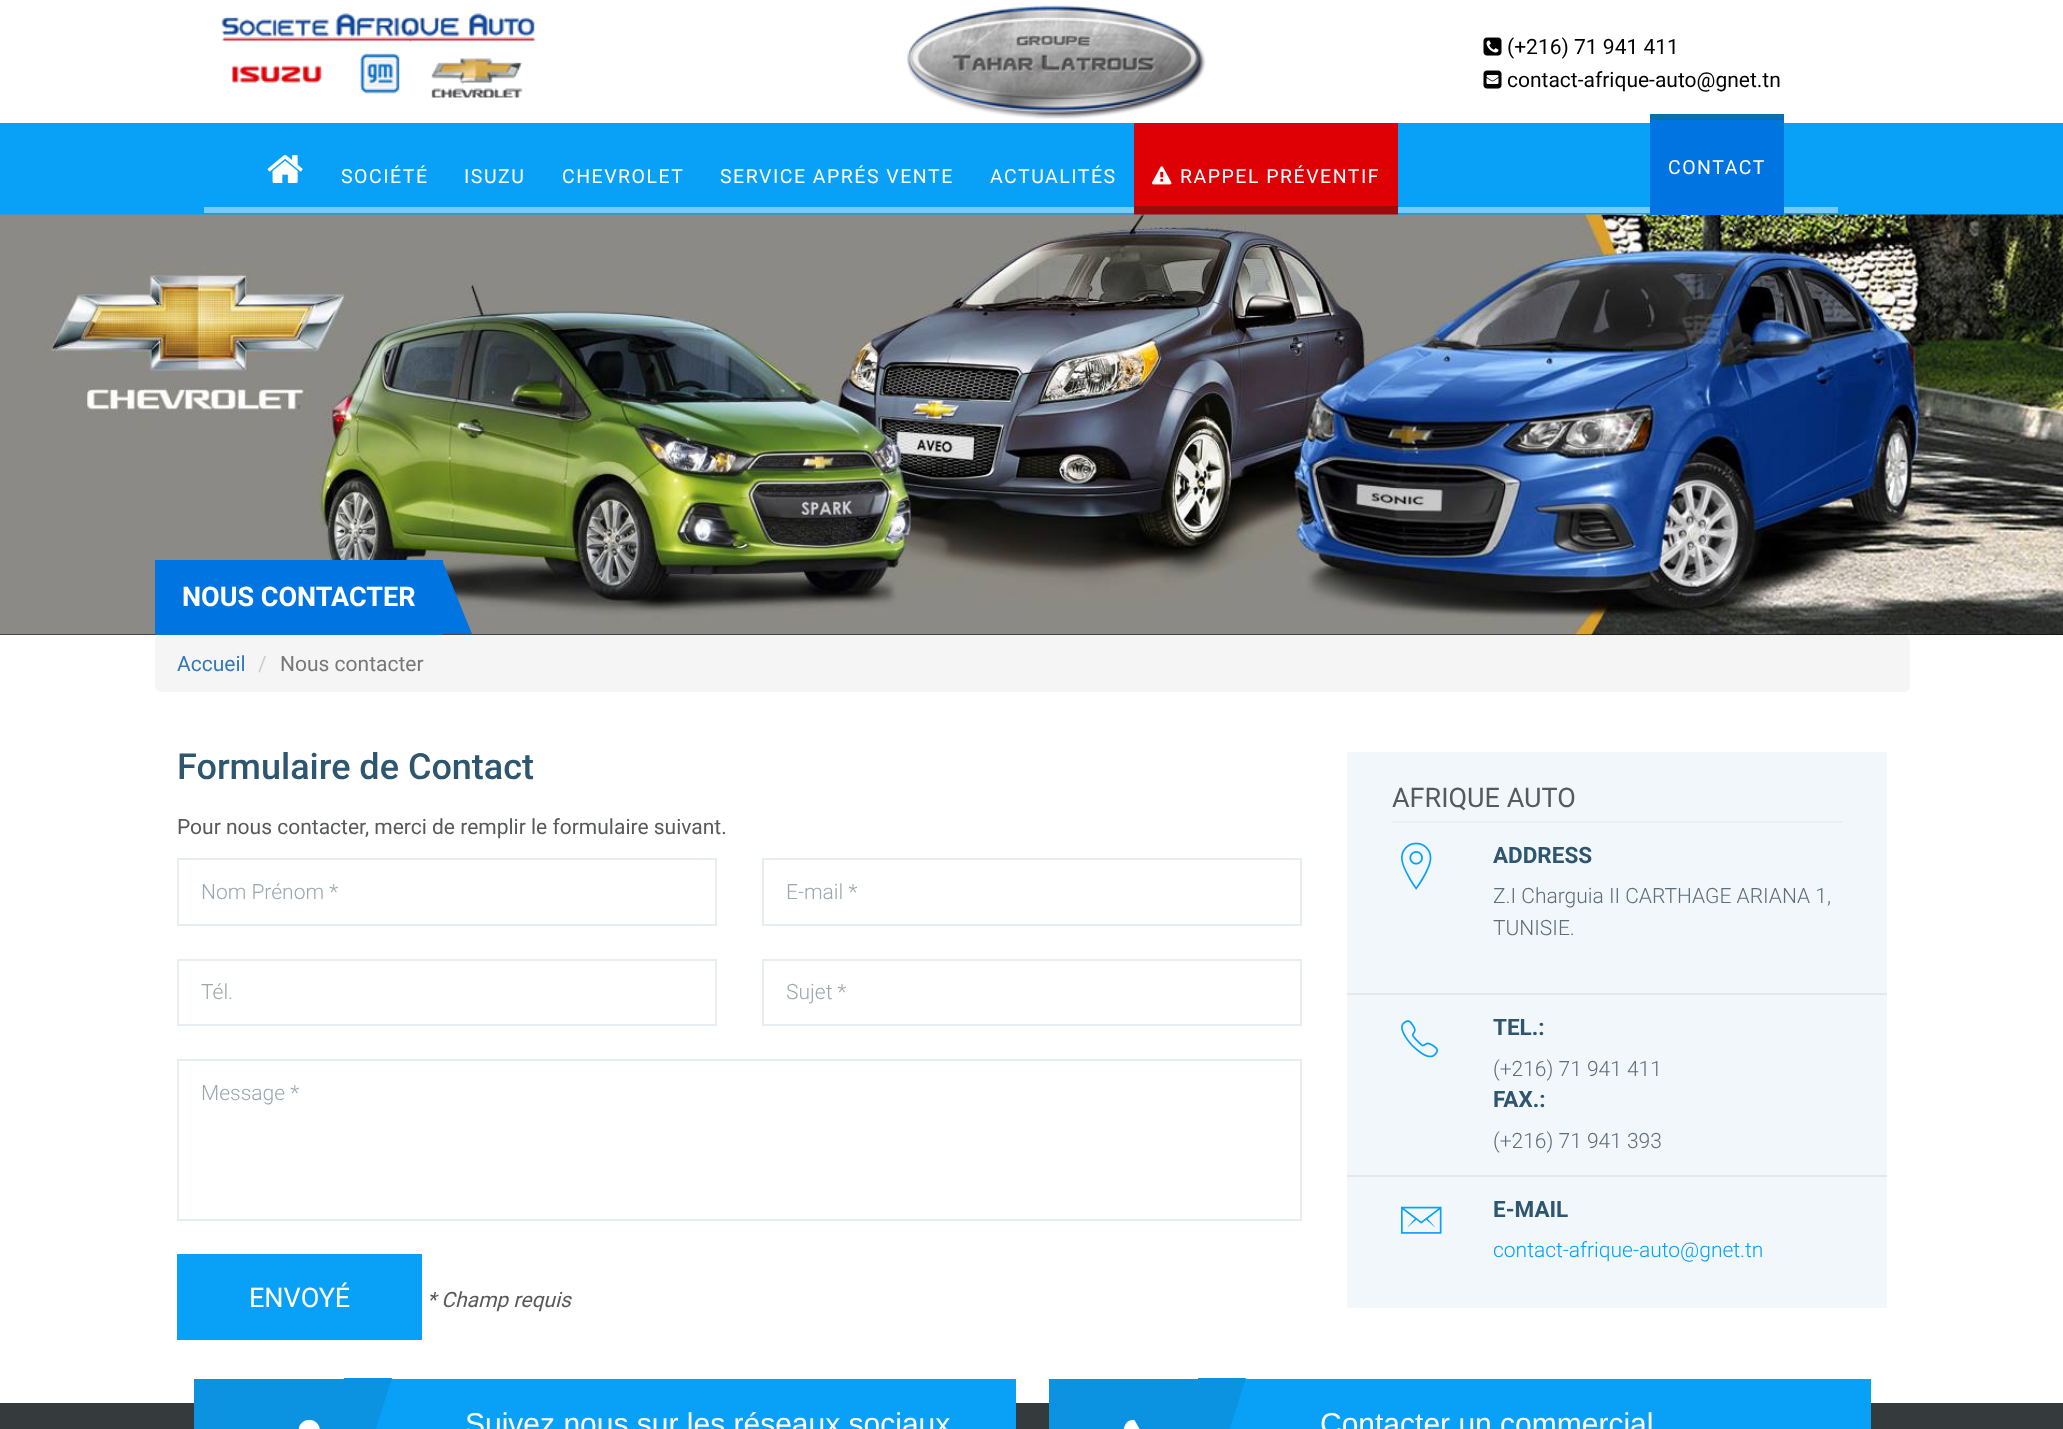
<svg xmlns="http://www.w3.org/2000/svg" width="2063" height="1429">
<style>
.a{font:21px Roboto;fill:#000}
.b{font:19.5px Roboto;letter-spacing:1.5px;fill:#fff}
.c{font:bold 27px Roboto;fill:#fff}
.d{font:21px Roboto;fill:#337ab7}
.e{font:21px Roboto;fill:#ccc}
.f{font:21px Roboto;fill:#777}
.g{font:500 36px Roboto;fill:#2e566e}
.h{font:21px Roboto;fill:#58595a}
.i{font:300 21px Roboto;fill:#9ba7ae}
.j{font:27px Roboto;fill:#fff}
.k{font:italic 21px Roboto;fill:#58595a}
.l{font:27px Roboto;fill:#58595a}
.m{font:bold 22.5px Roboto;fill:#2e566e}
.n{font:300 21px Roboto;fill:#5d6e7b}
.o{font:300 21px Roboto;fill:#09a0f7}
.p{font:30px Liberation Sans;fill:#fff}
</style>
<rect width="100%" height="100%" fill="#fff"/>
<image href="1.png" x="221" y="13" width="315" height="85"/>
<image href="2.png" x="907" y="5" width="299" height="114"/>
<image href="3.png" x="1483" y="37" width="19" height="19"/>
<image href="4.png" x="1483" y="70" width="19" height="19"/>
<path fill="#09a1f7" d="M0 123h2063v92H0z"/>
<path fill="#74cbfd" d="M204 207h1634v6H204z"/>
<image href="5.png" x="267" y="155" width="36" height="28"/>
<path fill="#df0005" d="M1134 123h264v83H1134z"/>
<path fill="#9d090c" d="M1134 206h264v9H1134z"/>
<image href="6.png" x="1152" y="166" width="20" height="19"/>
<path fill="#000" d="M0 634h2063v1H0z"/>
<image href="7.png" x="0" y="214" width="2063" height="421"/>
<path fill="#0074e1" d="M1650 120h134v95H1650z"/>
<path fill="#0b6fa9" d="M1650 114h134v6H1650z"/>
<path fill="#0074e1" d="M155 560h288v75H155z"/>
<path fill="#0074e1" d="M442 634v-74l30 74z"/>
<rect fill="#f5f5f5" x="155" y="635" width="1755" height="57" rx="6"/>
<path fill="none" stroke="#e7edf0" stroke-width="2" d="M178 859h538v66H178z"/>
<path fill="none" stroke="#e7edf0" stroke-width="2" d="M763 859h538v66H763z"/>
<path fill="none" stroke="#e7edf0" stroke-width="2" d="M178 960h538v65H178z"/>
<path fill="none" stroke="#e7edf0" stroke-width="2" d="M763 960h538v65H763z"/>
<path fill="none" stroke="#e7edf0" stroke-width="2" d="M178 1060h1123v160H178z"/>
<path fill="#09a0f7" d="M177 1254h245v86H177z"/>
<path fill="#f2f7fc" d="M1347 752h540v556H1347z"/>
<path fill="#eee" d="M1392 821h450v2H1392z"/>
<path fill="#e5e7e9" d="M1347 993h540v2H1347z"/>
<image href="8.png" x="1401" y="842" width="31" height="48"/>
<path fill="#e5e7e9" d="M1347 1175h540v2H1347z"/>
<image href="9.png" x="1401" y="1020" width="37" height="38"/>
<image href="10.png" x="1401" y="1206" width="41" height="28"/>
<path fill="#353a3d" d="M0 1403h2063v26H0z"/>
<path fill="#09a0f7" d="M375 1379h641v50H375z"/>
<path fill="#0b93e1" d="M194 1379h150v50H194z"/>
<image href="11.png" x="298" y="1419" width="22" height="10"/>
<path fill="#0b93e1" d="M344 1378h48l-48 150z"/>
<path fill="#09a0f7" d="M1229 1379h642v50H1229z"/>
<path fill="#0b93e1" d="M1049 1379h149v50H1049z"/>
<image href="12.png" x="1123" y="1419" width="17" height="10"/>
<path fill="#0b93e1" d="M1198 1378h48l-48 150z"/>
<text class="a" x="1507" y="54">(+216) 71 941 411</text>
<text class="a" x="1507" y="87">contact-afrique-auto@gnet.tn</text>
<text class="b" x="341" y="183">SOCIÉTÉ</text>
<text class="b" x="464" y="183">ISUZU</text>
<text class="b" x="562" y="183">CHEVROLET</text>
<text class="b" x="720" y="183">SERVICE APRÉS VENTE</text>
<text class="b" x="990" y="183">ACTUALITÉS</text>
<text class="b" x="1180" y="183">RAPPEL PRÉVENTIF</text>
<text class="b" x="1668" y="174">CONTACT</text>
<text class="c" x="182" y="606">NOUS CONTACTER</text>
<text class="d" x="177" y="671">Accueil</text>
<text class="e" x="258" y="671">/</text>
<text class="f" x="280" y="671">Nous contacter</text>
<text class="g" x="177" y="779">Formulaire de Contact</text>
<text class="h" x="177" y="834">Pour nous contacter, merci de remplir le formulaire suivant.</text>
<text class="i" x="201" y="899">Nom Prénom *</text>
<text class="i" x="786" y="899">E-mail *</text>
<text class="i" x="201" y="999">Tél.</text>
<text class="i" x="786" y="999">Sujet *</text>
<text class="i" x="201" y="1100">Message *</text>
<text class="j" x="249" y="1307">ENVOYÉ</text>
<text class="k" x="427" y="1307">* Champ requis</text>
<text class="l" x="1392" y="807">AFRIQUE AUTO</text>
<text class="m" x="1493" y="863">ADDRESS</text>
<text class="n" x="1493" y="903">Z.I Charguia II CARTHAGE ARIANA 1,</text>
<text class="n" x="1493" y="935">TUNISIE.</text>
<text class="m" x="1493" y="1035">TEL.:</text>
<text class="n" x="1493" y="1076">(+216) 71 941 411</text>
<text class="m" x="1493" y="1107">FAX.:</text>
<text class="n" x="1493" y="1148">(+216) 71 941 393</text>
<text class="m" x="1493" y="1217">E-MAIL</text>
<text class="o" x="1493" y="1257">contact-afrique-auto@gnet.tn</text>
<text class="p" x="465" y="1434">Suivez nous sur les réseaux sociaux</text>
<text class="p" x="1320" y="1434">Contacter un commercial</text>
</svg>
